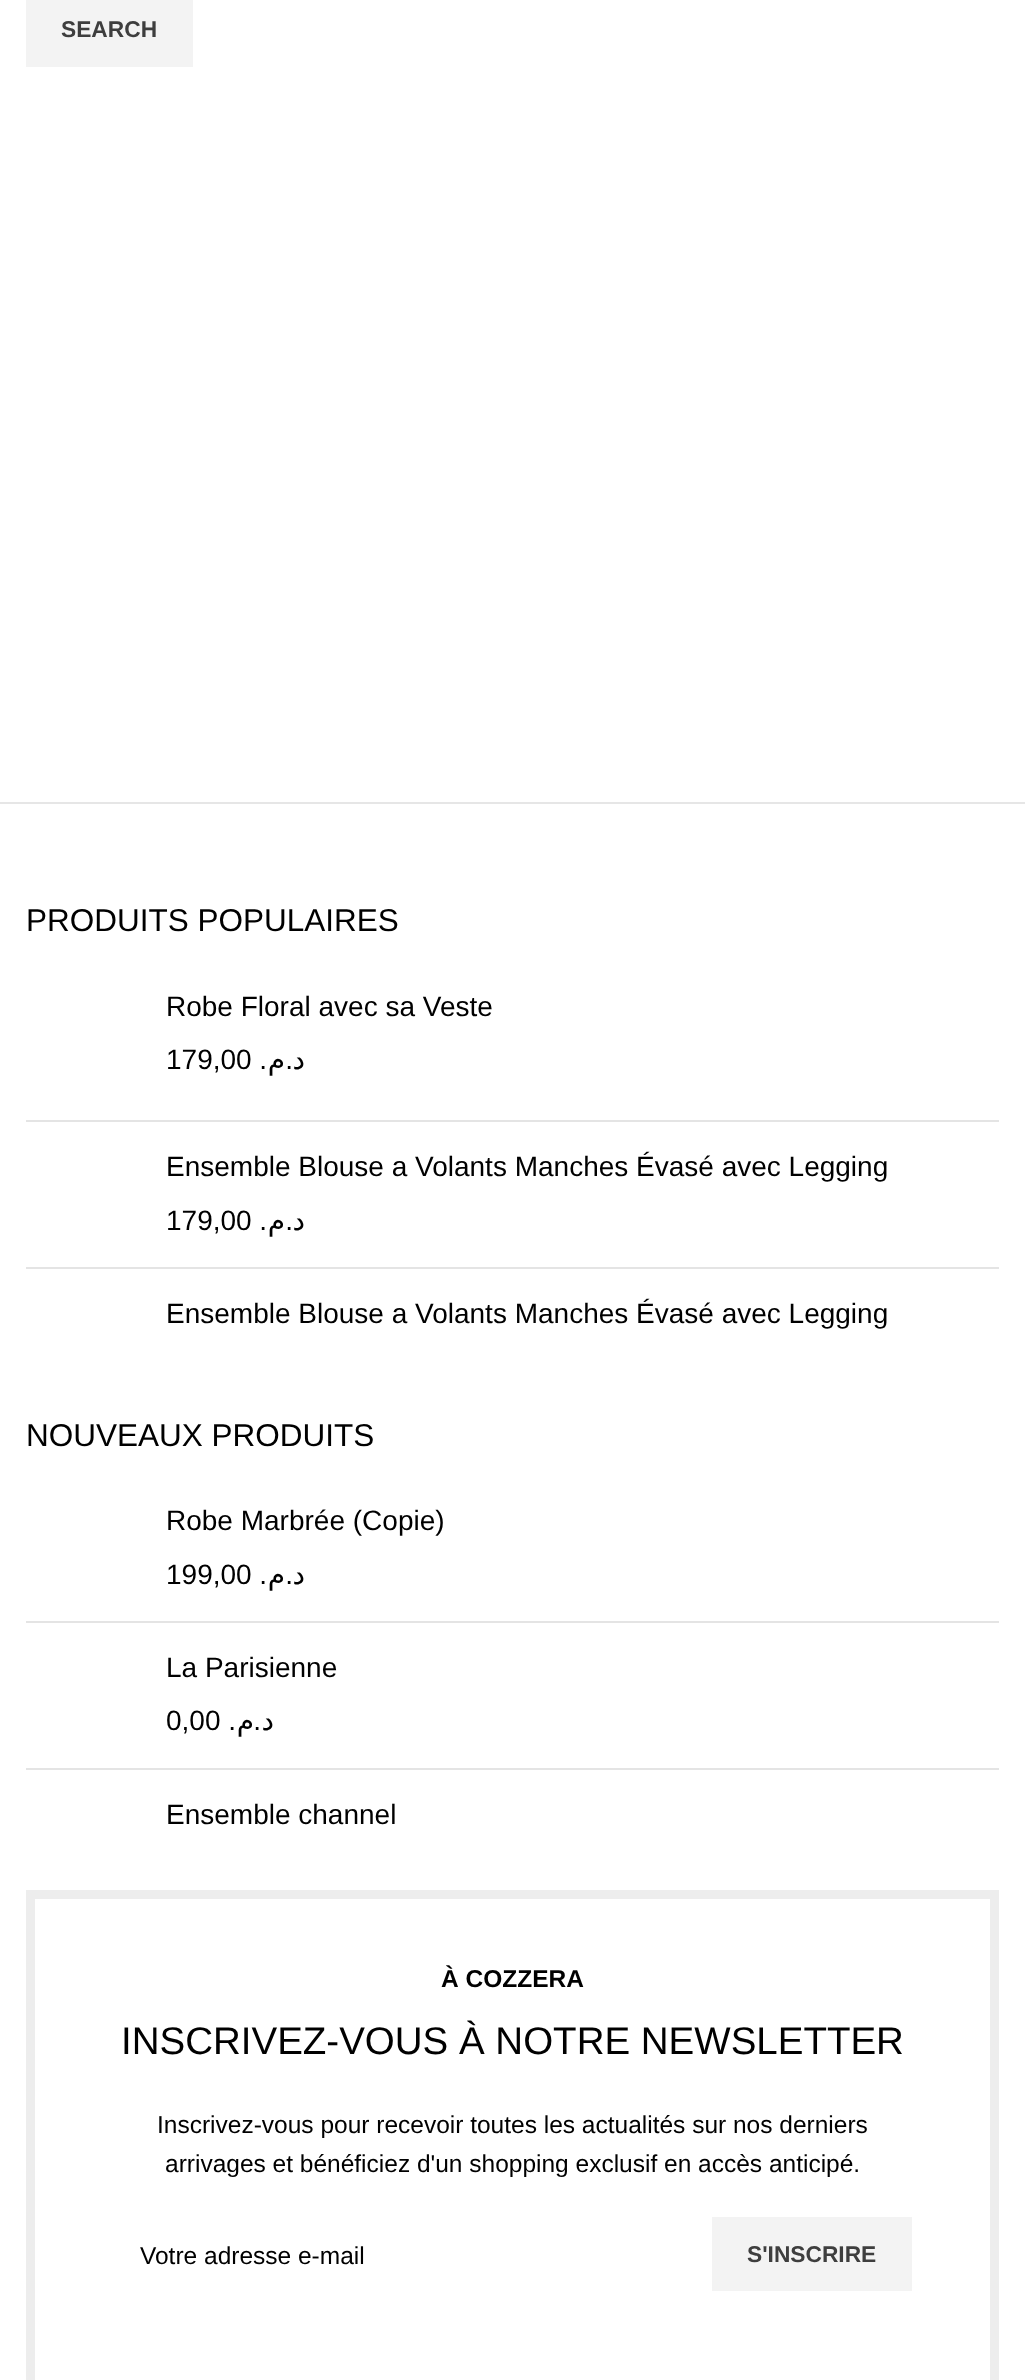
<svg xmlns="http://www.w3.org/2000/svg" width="1025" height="2380">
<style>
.a{font:bold 22.75px Liberation Sans;fill:#3e3e3e}
.b{font:31.5px Liberation Sans;fill:#000}
.c{font:28px Liberation Sans;fill:#000}
.d{font:28px Liberation Sans;direction:rtl;fill:#000}
.e{font:28px DejaVu Sans;direction:rtl;fill:#000}
.f{font:bold 24.5px Liberation Sans;fill:#000}
.g{font:38.5px Liberation Sans;fill:#000}
.h{font:24.5px Liberation Sans;fill:#000}
</style>
<rect width="100%" height="100%" fill="#fff"/>
<path fill="#f3f3f3" d="M26 0h167v67H26z"/>
<path fill="#e6e6e6" d="M0 802h1025v2H0z"/>
<path fill="#e4e4e4" d="M26 1120h973v2H26z"/>
<path fill="#e4e4e4" d="M26 1267h973v2H26z"/>
<path fill="#e4e4e4" d="M26 1621h973v2H26z"/>
<path fill="#e4e4e4" d="M26 1768h973v2H26z"/>
<path fill="none" stroke="#ededed" stroke-width="9" d="M30.5 1894.5h964v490H30.5z"/>
<path fill="#f3f3f3" d="M712 2217h200v74H712z"/>
<text class="a" x="61" y="37">SEARCH</text>
<text class="b" x="26" y="931">PRODUITS POPULAIRES</text>
<text class="c" x="166" y="1016">Robe Floral avec sa Veste</text>
<text class="c" x="166" y="1069">179,00</text>
<text class="d" x="267" y="1069">.</text>
<text class="e" x="285" y="1069">م</text>
<text class="d" x="293" y="1069">.</text>
<text class="e" x="305" y="1069">د</text>
<text class="c" x="166" y="1176">Ensemble Blouse a Volants Manches Évasé avec Legging</text>
<text class="c" x="166" y="1230">179,00</text>
<text class="d" x="267" y="1230">.</text>
<text class="e" x="285" y="1230">م</text>
<text class="d" x="293" y="1230">.</text>
<text class="e" x="305" y="1230">د</text>
<text class="c" x="166" y="1323">Ensemble Blouse a Volants Manches Évasé avec Legging</text>
<text class="b" x="26" y="1446">NOUVEAUX PRODUITS</text>
<text class="c" x="166" y="1530">Robe Marbrée (Copie)</text>
<text class="c" x="166" y="1584">199,00</text>
<text class="d" x="267" y="1584">.</text>
<text class="e" x="285" y="1584">م</text>
<text class="d" x="293" y="1584">.</text>
<text class="e" x="305" y="1584">د</text>
<text class="c" x="166" y="1677">La Parisienne</text>
<text class="c" x="166" y="1730">0,00</text>
<text class="d" x="236" y="1730">.</text>
<text class="e" x="254" y="1730">م</text>
<text class="d" x="261" y="1730">.</text>
<text class="e" x="274" y="1730">د</text>
<text class="c" x="166" y="1824">Ensemble channel</text>
<text class="f" x="441" y="1987">À COZZERA</text>
<text class="g" x="121" y="2054">INSCRIVEZ-VOUS À NOTRE NEWSLETTER</text>
<text class="h" x="157" y="2133">Inscrivez-vous pour recevoir toutes les actualités sur nos derniers</text>
<text class="h" x="165" y="2172">arrivages et bénéficiez d'un shopping exclusif en accès anticipé.</text>
<text class="h" x="140" y="2264">Votre adresse e-mail</text>
<text class="a" x="747" y="2262">S'INSCRIRE</text>
</svg>
